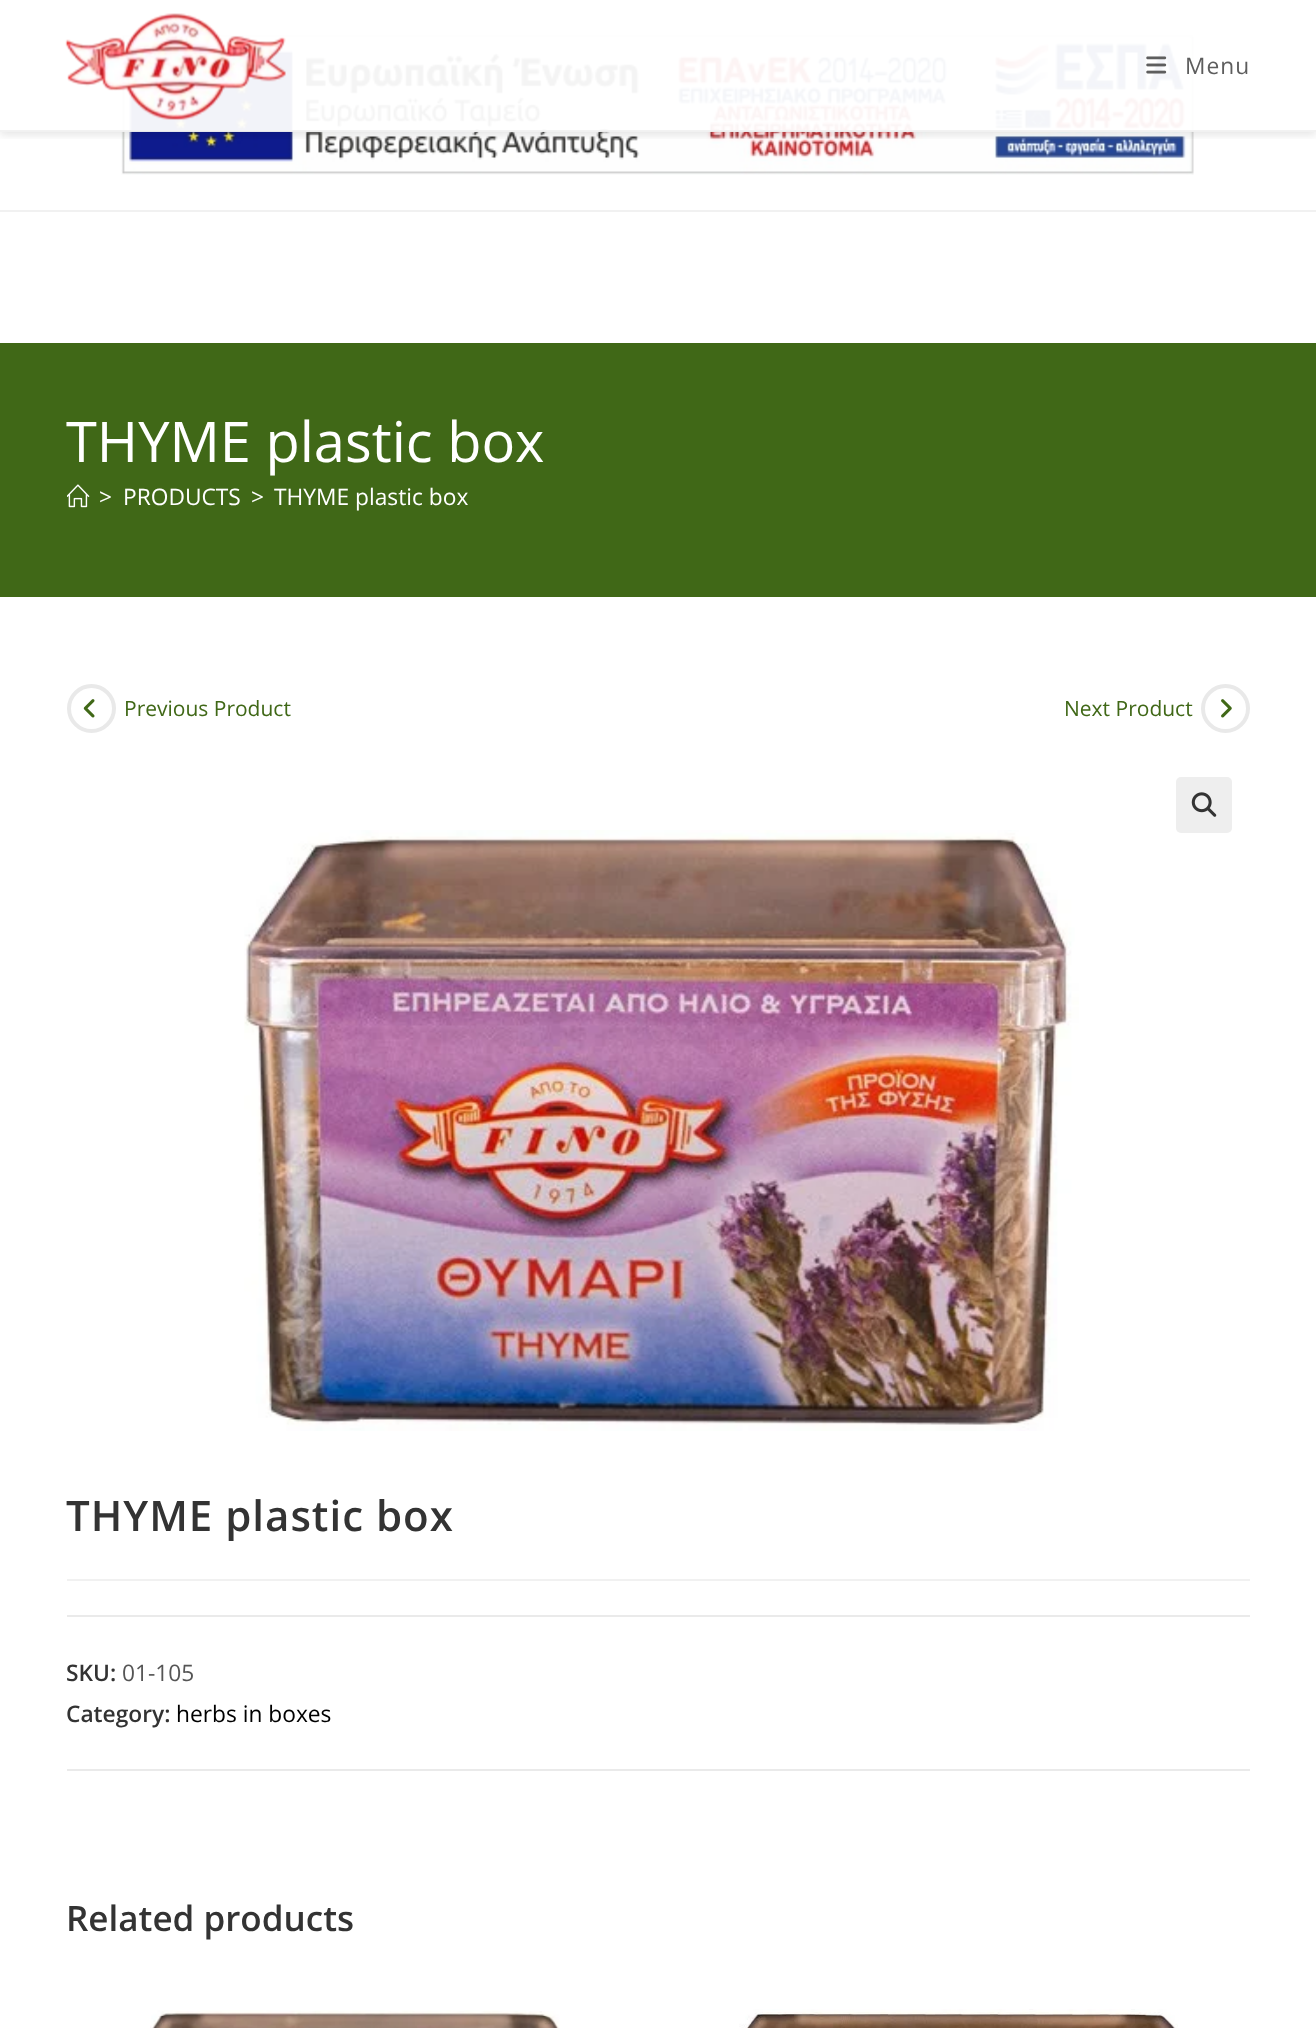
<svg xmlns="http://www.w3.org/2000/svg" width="1316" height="2028">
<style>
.a{font:22.75px Open Sans;letter-spacing:1px;fill:#5d5d5d}
.b{font:56px Open Sans;fill:#fff}
.c{font:22.75px Open Sans;fill:#fff}
.d{font:21px Open Sans;fill:#406817}
.e{font:600 42px Open Sans;letter-spacing:1px;fill:#333}
.f{font:600 22.75px Open Sans;fill:#333}
.g{font:22.75px Open Sans;fill:#555}
.h{font:22.75px Open Sans;fill:#000}
.i{font:600 35px Open Sans;fill:#333}
</style>
<defs>
<clipPath id="clip1"><path d="M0 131h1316v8H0z"/></clipPath>
</defs>
<rect width="100%" height="100%" fill="#fff"/>
<path fill="#f1f1f1" d="M0 210h1316v2H0z"/>
<image href="1.png" x="121" y="35" width="1073" height="140"/>
<g clip-path="url(#clip1)">
<path fill="#0000001a" filter="blur(4.5px)" d="M0 4h1316v131H0z"/>
</g>
<path fill="#fffffff2" d="M121 35h1073v96H121z"/>
<path fill="#f1f1f1f2" d="M0 130h1316v2H0z"/>
<image href="2.png" x="65" y="13" width="221" height="107"/>
<image href="3.png" x="1146" y="56" width="21" height="18"/>
<path fill="#406817" d="M0 343h1316v254H0z"/>
<image href="4.png" x="67" y="484" width="23" height="24"/>
<circle fill="none" stroke="#e9e9e9" stroke-width="4" cx="91.5" cy="708.5" r="22.5"/>
<image href="5.png" x="83" y="699" width="12" height="19"/>
<circle fill="none" stroke="#e9e9e9" stroke-width="4" cx="1225.5" cy="708.5" r="22.5"/>
<image href="6.png" x="1221" y="699" width="11" height="19"/>
<rect fill="#eee" x="1176" y="777" width="56" height="56" rx="5"/>
<image href="7.png" x="1191" y="792" width="26" height="25"/>
<image href="8.png" x="244" y="830" width="835" height="601"/>
<path fill="#f1f1f1" d="M67 1579h1183v2H67z"/>
<path fill="#eaeaea" d="M67 1615h1183v2H67z"/>
<path fill="#eaeaea" d="M67 1769h1183v2H67z"/>
<image href="9.png" x="150" y="2010" width="410" height="18"/>
<image href="10.png" x="739" y="2009" width="439" height="19"/>
<text class="a" x="1185" y="74">Menu</text>
<text class="b" x="66" y="462">THYME plastic box</text>
<text class="c" x="99" y="505">&gt;</text>
<text class="c" x="123" y="505">PRODUCTS</text>
<text class="c" x="251" y="505">&gt;</text>
<text class="c" x="274" y="505">THYME plastic box</text>
<text class="d" x="124" y="716">Previous Product</text>
<text class="d" x="1064" y="716">Next Product</text>
<text class="e" x="66" y="1531">THYME plastic box</text>
<text class="f" x="66" y="1681">SKU:</text>
<text class="g" x="122" y="1681">01-105</text>
<text class="f" x="66" y="1722">Category:</text>
<text class="h" x="176" y="1722">herbs in boxes</text>
<text class="i" x="66" y="1931">Related products</text>
</svg>
